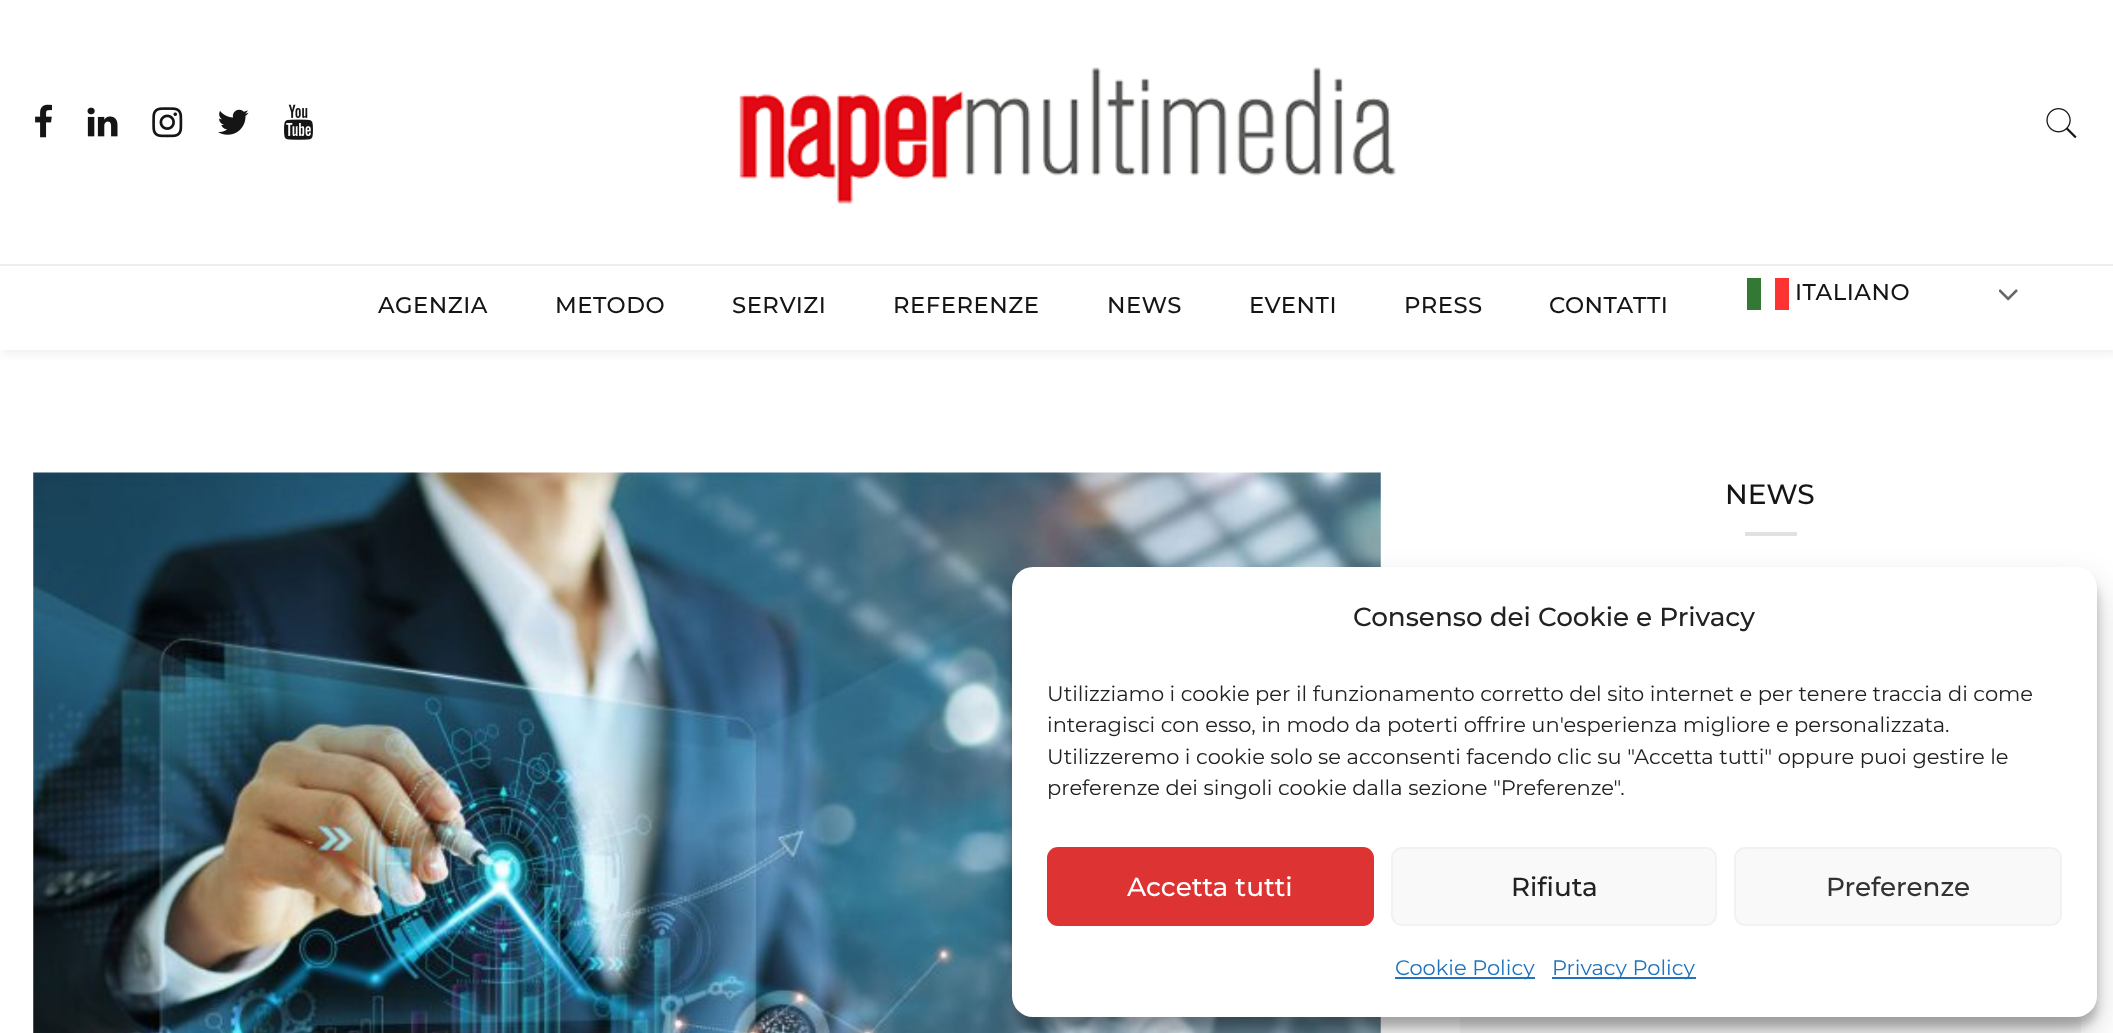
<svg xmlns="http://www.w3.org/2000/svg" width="2113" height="1033">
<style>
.a{font:500 22.75px Montserrat;letter-spacing:0.5px;fill:#151515}
.b{font:500 28px Montserrat;fill:#151515}
.c{font:500 26.25px Montserrat;fill:#222}
.d{font:21px Montserrat;fill:#222}
.e{font:500 26.25px Montserrat;fill:#fff}
.f{font:500 26.25px Montserrat;fill:#333}
.g{font:21px Montserrat;fill:#1e73be}
</style>
<defs>
<clipPath id="clip1"><path d="M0 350h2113v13H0z"/></clipPath>
</defs>
<rect width="100%" height="100%" fill="#fff"/>
<g clip-path="url(#clip1)">
<path fill="#ebebebbf" filter="blur(4.5px)" d="M2 4h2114v350H2z"/>
</g>
<image href="1.png" x="35" y="104" width="17" height="34"/>
<image href="2.png" x="87" y="107" width="31" height="30"/>
<image href="3.png" x="152" y="107" width="31" height="31"/>
<image href="4.png" x="218" y="109" width="31" height="26"/>
<image href="5.png" x="284" y="104" width="29" height="36"/>
<image href="6.png" x="739" y="67" width="657" height="137"/>
<image href="7.png" x="2046" y="108" width="31" height="31"/>
<path fill="#eee" d="M0 264h2113v2H0z"/>
<path fill="#337933" d="M1747 278h14v32H1747z"/>
<path fill="#fd3333" d="M1775 278h14v32H1775z"/>
<image href="8.png" x="1999" y="289" width="19" height="12"/>
<image href="9.png" x="33" y="472" width="1348" height="561"/>
<path fill="#e1e1e1" d="M1745 532h52v4H1745z"/>
<path fill="#f7f7f7" d="M1460 1016h621v17H1460z"/>
<rect fill="#0000003b" filter="blur(5px)" x="1012" y="578" width="1085" height="449" rx="21"/>
<rect fill="#00000030" filter="blur(17.5px)" x="1012" y="585" width="1085" height="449" rx="21"/>
<rect fill="#fff" x="1012" y="567" width="1085" height="450" rx="21"/>
<rect fill="#d33" stroke="#d33" stroke-width="2" x="1048" y="848" width="325" height="77" rx="10"/>
<rect fill="#f9f9f9" stroke="#f2f2f2" stroke-width="2" x="1392" y="848" width="324" height="77" rx="10"/>
<rect fill="#f9f9f9" stroke="#f2f2f2" stroke-width="2" x="1735" y="848" width="326" height="77" rx="10"/>
<path fill="#1e73be" d="M1395 977h140v2H1395z"/>
<path fill="#1e73be" d="M1552 977h144v2H1552z"/>
<text class="a" x="1795" y="300">ITALIANO</text>
<text class="a" x="378" y="313">AGENZIA</text>
<text class="a" x="555" y="313">METODO</text>
<text class="a" x="732" y="313">SERVIZI</text>
<text class="a" x="893" y="313">REFERENZE</text>
<text class="a" x="1107" y="313">NEWS</text>
<text class="a" x="1249" y="313">EVENTI</text>
<text class="a" x="1404" y="313">PRESS</text>
<text class="a" x="1549" y="313">CONTATTI</text>
<text class="b" x="1725" y="504">NEWS</text>
<text class="c" x="1353" y="626">Consenso dei Cookie e Privacy</text>
<text class="d" x="1047" y="701">Utilizziamo i cookie per il funzionamento corretto del sito internet e per tenere traccia di come</text>
<text class="d" x="1047" y="732">interagisci con esso, in modo da poterti offrire un'esperienza migliore e personalizzata.</text>
<text class="d" x="1047" y="764">Utilizzeremo i cookie solo se acconsenti facendo clic su "Accetta tutti" oppure puoi gestire le</text>
<text class="d" x="1047" y="795">preferenze dei singoli cookie dalla sezione "Preferenze".</text>
<text class="e" x="1127" y="896">Accetta tutti</text>
<text class="c" x="1511" y="896">Rifiuta</text>
<text class="f" x="1826" y="896">Preferenze</text>
<text class="g" x="1395" y="975">Cookie Policy</text>
<text class="g" x="1552" y="975">Privacy Policy</text>
</svg>
